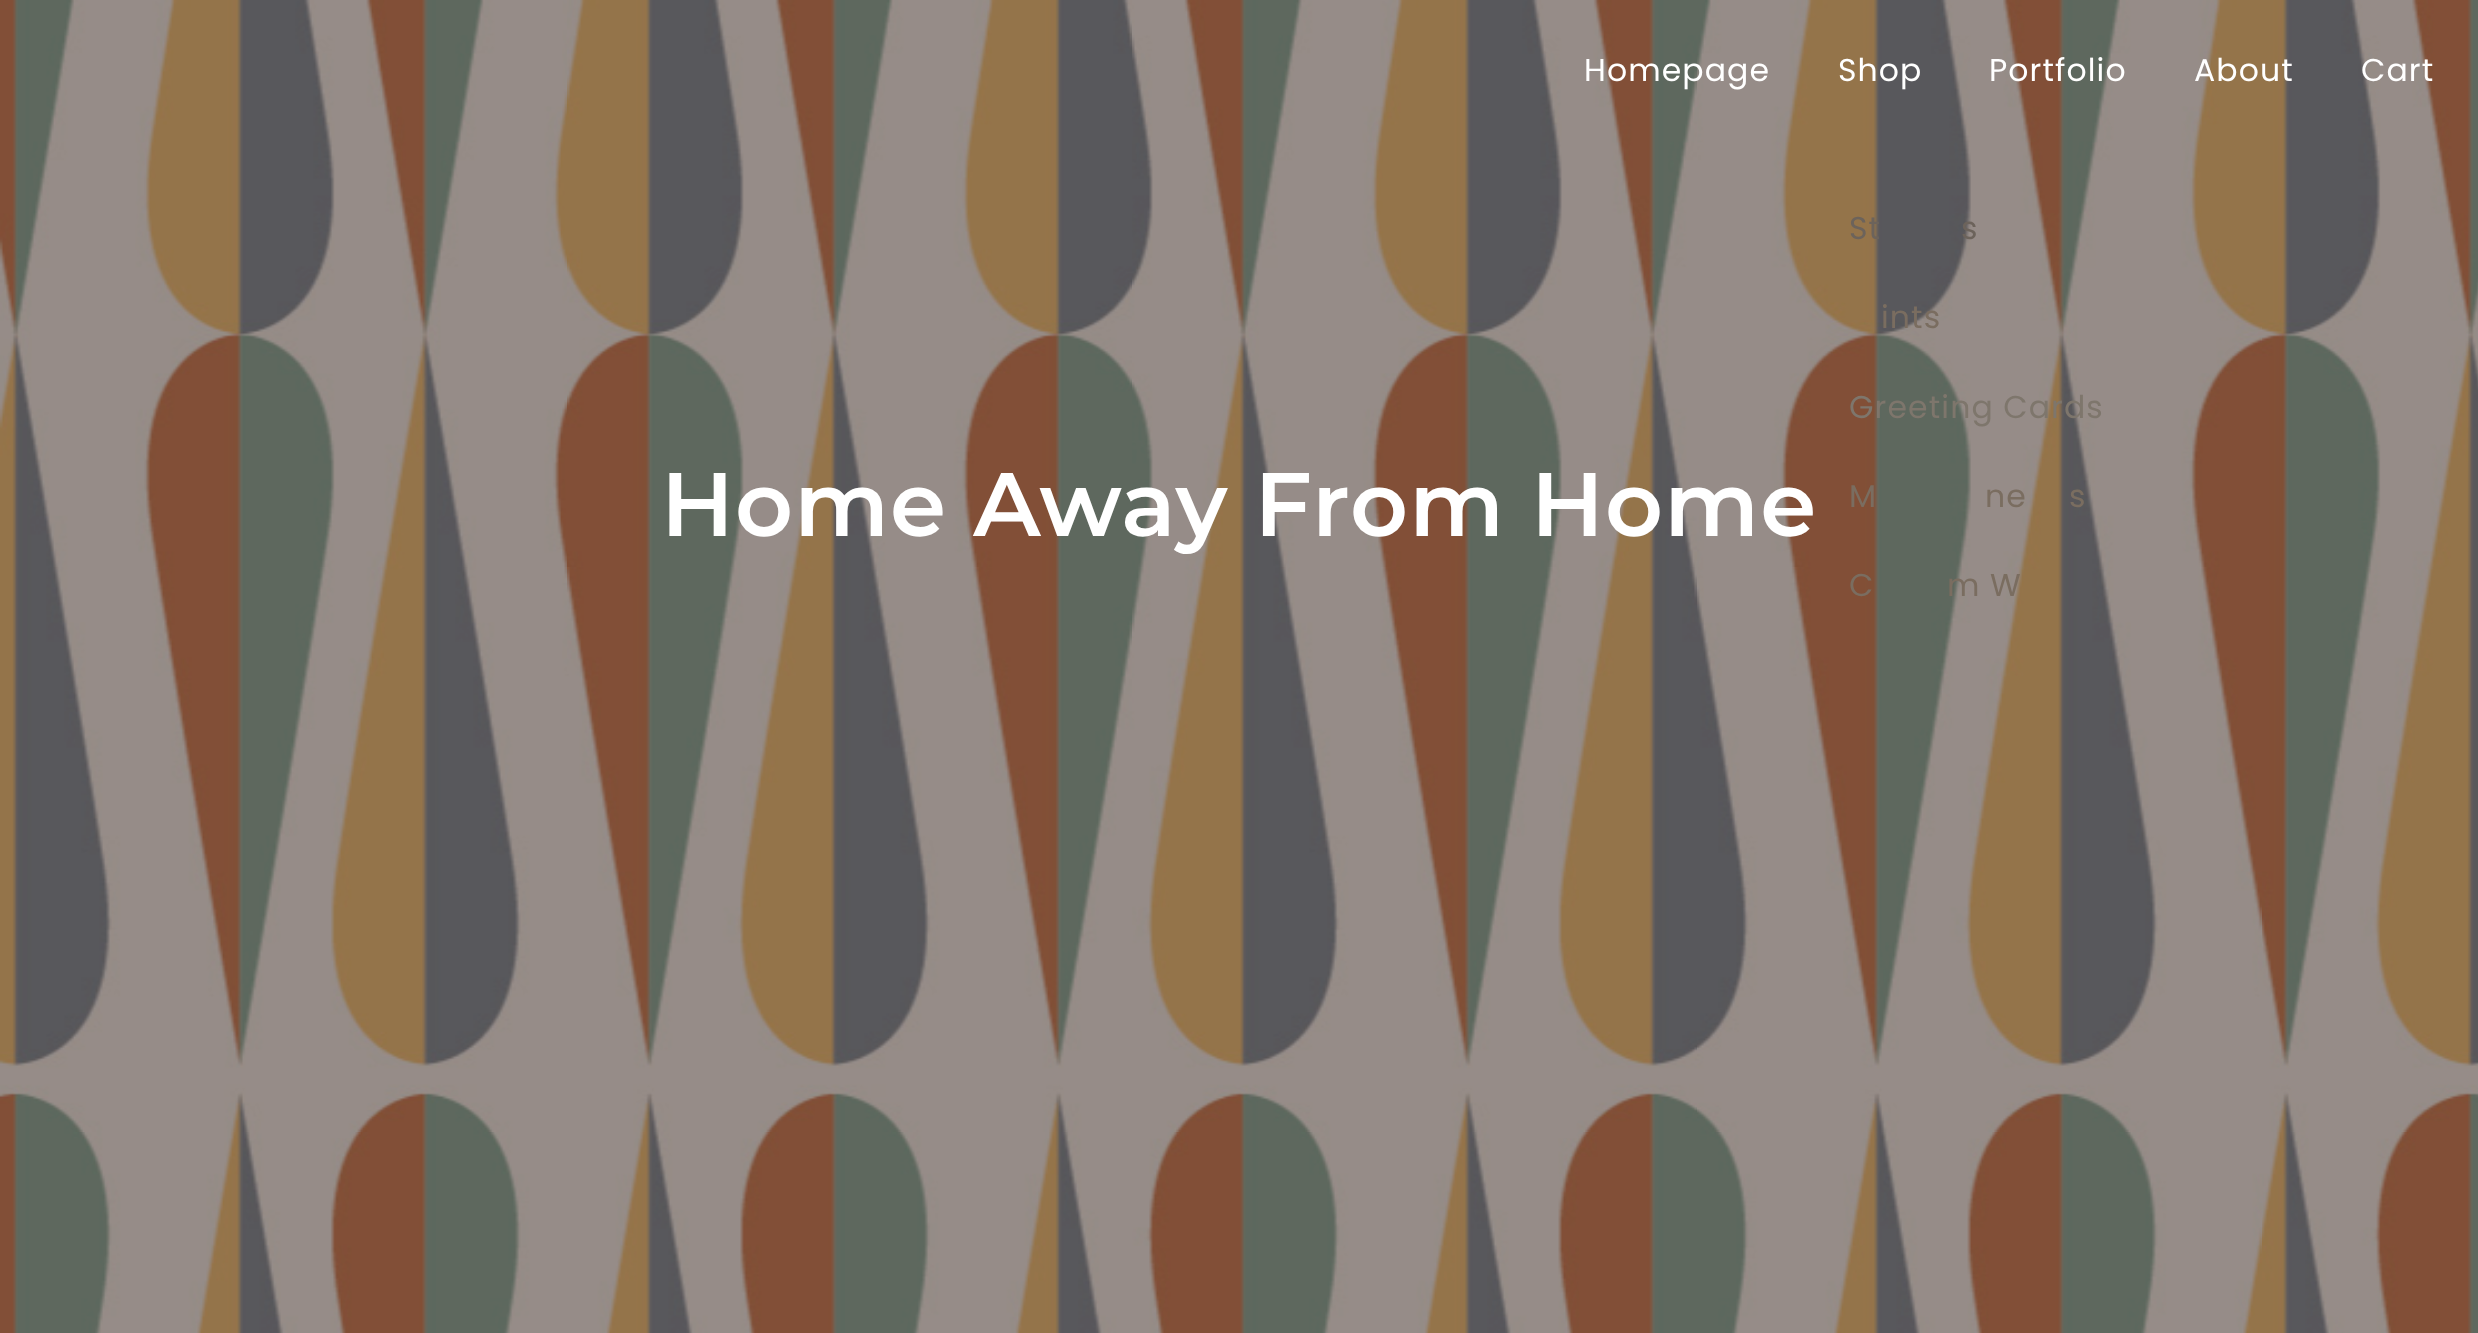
<svg xmlns="http://www.w3.org/2000/svg" width="2478" height="1333">
<style>
.a{font:600 90px Montserrat;letter-spacing:1.1px;fill:#fff}
.b{font:31.5px Poppins;letter-spacing:1.1px;fill:#fff}
.c{font:31.5px Poppins;letter-spacing:1.1px;fill:#6c635b}
.d{font:31.5px Poppins;letter-spacing:1.1px;fill:#7a6d60}
.e{font:31.5px Poppins;letter-spacing:1.1px;fill:#7e766c}
</style>
<rect width="100%" height="100%" fill="#fff"/>
<image href="1.png" x="0" y="0" width="2478" height="1333"/>
<text class="a" x="661" y="536">Home Away From Home</text>
<text class="b" x="1989" y="81">Portfolio</text>
<text class="b" x="1584" y="81">Homepage</text>
<text class="b" x="1838" y="81">Shop</text>
<text class="c" x="1849" y="239">St</text>
<text class="c" x="1961" y="239">s</text>
<text class="d" x="1881" y="328">ints</text>
<text class="e" x="1849" y="418">Greeting Cards</text>
<text class="d" x="1849" y="507">M</text>
<text class="d" x="1985" y="507">ne</text>
<text class="d" x="2069" y="507">s</text>
<text class="d" x="1849" y="596">C</text>
<text class="d" x="1947" y="596">m W</text>
<text class="b" x="2194" y="81">About</text>
<text class="b" x="2361" y="81">Cart</text>
</svg>
